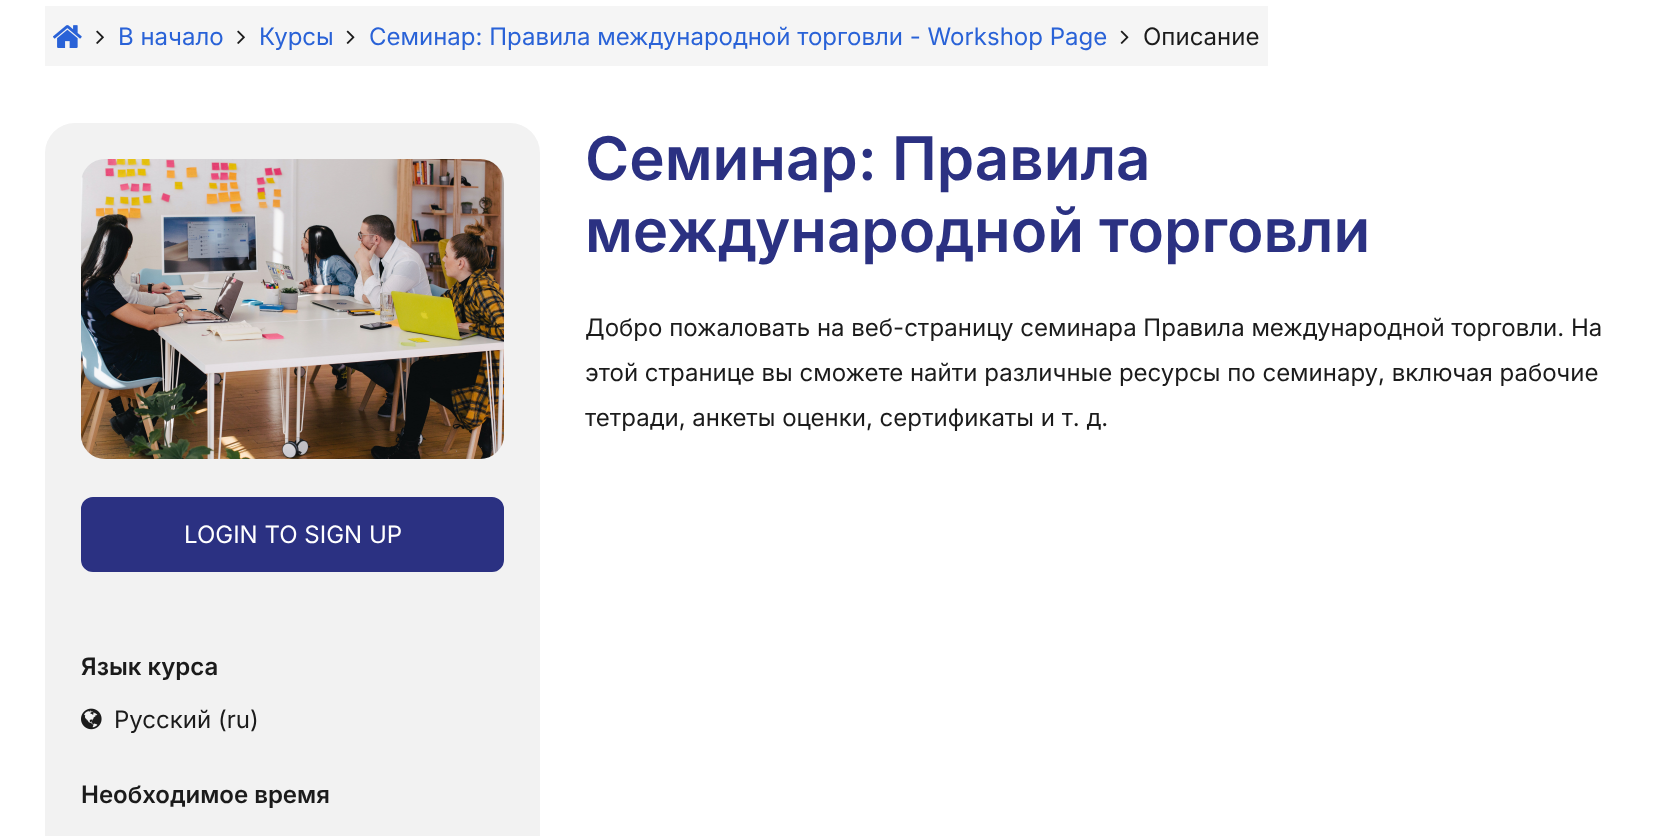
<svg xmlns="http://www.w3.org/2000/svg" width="1666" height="836">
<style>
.a{font:24px Inter;fill:#2962d7}
.b{font:24px Inter;fill:#1b1b1b}
.c{font:600 60px Inter;fill:#2b3182}
.d{font:24px Inter;fill:#fff}
.e{font:600 24px Inter;fill:#1b1b1b}
</style>
<rect width="100%" height="100%" fill="#fff"/>
<path fill="#f5f5f5" d="M45 6h1223v60H45z"/>
<image href="1.png" x="53" y="25" width="29" height="23"/>
<image href="2.png" x="96" y="30" width="8" height="14"/>
<image href="2.png" x="237" y="30" width="8" height="14"/>
<image href="3.png" x="346" y="30" width="9" height="14"/>
<image href="3.png" x="1120" y="30" width="9" height="14"/>
<rect fill="#f2f2f2" x="45" y="123" width="495" height="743" rx="30"/>
<image href="4.png" x="81" y="159" width="423" height="300"/>
<rect fill="#2b3182" stroke="#2b3182" stroke-width="2" x="82" y="498" width="421" height="73" rx="11"/>
<image href="5.png" x="81" y="708" width="21" height="22"/>
<text class="a" x="118" y="45">В начало</text>
<text class="a" x="259" y="45">Курсы</text>
<text class="a" x="369" y="45">Семинар: Правила международной торговли - Workshop Page</text>
<text class="b" x="1143" y="45">Описание</text>
<text class="c" x="585" y="180">Семинар: Правила</text>
<text class="c" x="585" y="252">международной торговли</text>
<text class="b" x="585" y="336">Добро пожаловать на веб-страницу семинара Правила международной торговли. На</text>
<text class="b" x="585" y="381">этой странице вы сможете найти различные ресурсы по семинару, включая рабочие</text>
<text class="b" x="585" y="426">тетради, анкеты оценки, сертификаты и т. д.</text>
<text class="d" x="184" y="543">LOGIN TO SIGN UP</text>
<text class="e" x="81" y="675">Язык курса</text>
<text class="b" x="114" y="728">Русский (ru)</text>
<text class="e" x="81" y="803">Необходимое время</text>
</svg>
